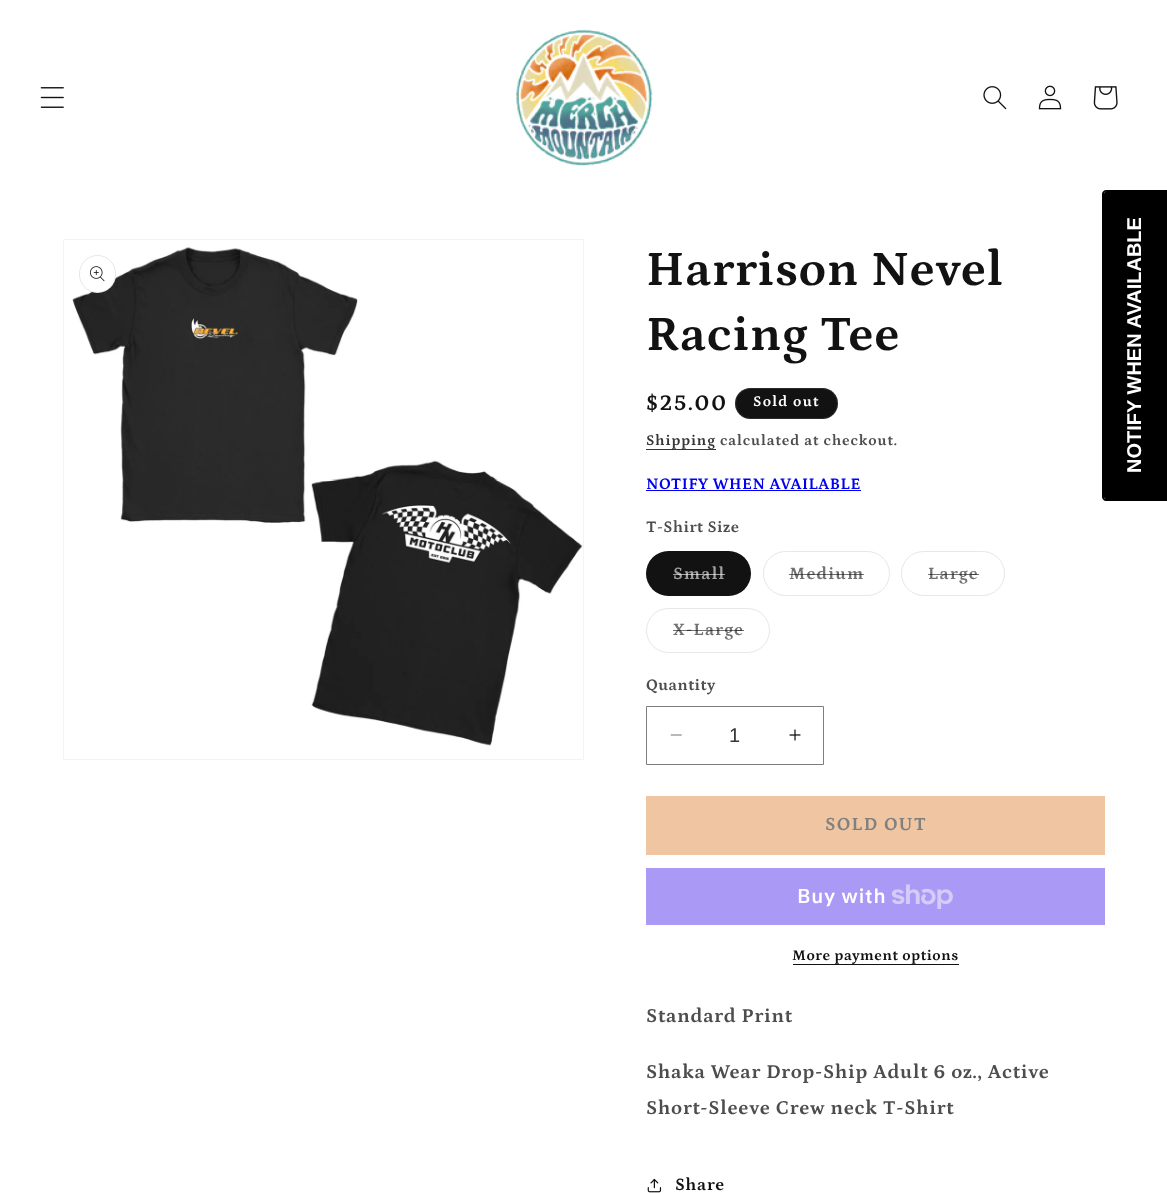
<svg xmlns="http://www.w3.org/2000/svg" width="1167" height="1193">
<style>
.a{font:bold 50px Petrona;letter-spacing:0.75px;fill:#121212}
.b{font:bold 22.5px Petrona;letter-spacing:1.5px;fill:#121212}
.c{font:bold 15px Petrona;letter-spacing:1.25px;fill:#fff}
.d{font:bold 15px Petrona;letter-spacing:0.9px;fill:#363636}
.e{font:bold 15px Petrona;letter-spacing:0.9px;fill:#4d4d4d}
.f{font:bold 16.25px Petrona;letter-spacing:0.5px;fill:#00e}
.g{font:bold 16.25px Petrona;letter-spacing:0.5px;fill:#4d4d4d}
.h{font:bold 17.5px Petrona;letter-spacing:1.25px;fill:#a0a0a0}
.i{font:bold 17.5px Petrona;letter-spacing:1.25px;fill:#717171}
.j{font:20px Liberation Sans;fill:#363636}
.k{font:bold 18.75px Petrona;letter-spacing:1.25px;fill:#808080}
.l{font:600 20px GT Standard;letter-spacing:0.75px;fill:#fff}
.m{font:bold 15px Petrona;letter-spacing:0.6px;fill:#121212}
.n{font:bold 20px Petrona;letter-spacing:0.75px;fill:#4d4d4d}
.o{font:bold 17.5px Petrona;letter-spacing:0.75px;fill:#121212}
.p{font:bold 20px Liberation Sans;fill:#fff}
</style>
<rect width="100%" height="100%" fill="#fff"/>
<image href="1.png" x="40" y="87" width="24" height="21"/>
<image href="2.png" x="516" y="29" width="137" height="137"/>
<image href="3.png" x="983" y="86" width="24" height="24"/>
<image href="4.png" x="1038" y="85" width="24" height="25"/>
<image href="5.png" x="1093" y="86" width="25" height="24"/>
<path fill="none" stroke="#f3f3f3" d="M63.5 239.5h520v520H63.5z"/>
<image href="6.png" x="72" y="247" width="511" height="499"/>
<rect fill="#fff" x="79" y="255" width="37" height="38" rx="18.5"/>
<rect fill="none" stroke="#1212121a" x="79.5" y="255.5" width="36" height="37" rx="18"/>
<image href="7.png" x="90" y="266" width="15" height="16"/>
<rect fill="#121212" x="735" y="388" width="103" height="31" rx="15.5"/>
<rect fill="none" stroke="#ffffff1a" x="735.5" y="388.5" width="102" height="30" rx="15"/>
<path fill="#363636" d="M646 449h70v1H646z"/>
<path fill="#00e" d="M646 490h215v1H646z"/>
<rect fill="#121212" x="646" y="551" width="105" height="45" rx="22.5"/>
<rect fill="none" stroke="#1212121a" x="646.5" y="551.5" width="104" height="44" rx="22"/>
<rect fill="none" stroke="#e7e7e7" x="763.5" y="551.5" width="126" height="44" rx="22"/>
<rect fill="none" stroke="#e7e7e7" x="901.5" y="551.5" width="103" height="44" rx="22"/>
<rect fill="none" stroke="#e7e7e7" x="646.5" y="608.5" width="123" height="44" rx="22"/>
<image href="8.png" x="670" y="734" width="12" height="2"/>
<image href="9.png" x="789" y="729" width="12" height="12"/>
<path fill="none" stroke="#7d7d7d" d="M646.5 706.5h177v58H646.5z"/>
<path fill="#f0c5a1" d="M646 796h459v59H646z"/>
<path fill="#aa99f5" d="M646 868h459v57H646z"/>
<image href="10.png" x="892" y="884" width="61" height="25"/>
<path fill="#121212" d="M793 964h166v1H793z"/>
<image href="11.png" x="647" y="1178" width="15" height="15"/>
<path fill="#000" d="M1104 497v-303c0-1 1-3 2-3h61v308h-61c-1 0-2-1-2-2z"/>
<path fill="#000" fill-rule="evenodd" d="M1102 497v-303c0-2 2-4 4-4h61v311h-61c-2 0-4-2-4-4zm2 0v-303c0-1 1-3 2-3h61v308h-61c-1 0-2-1-2-2z"/>
<text class="a" x="646" y="285">Harrison Nevel</text>
<text class="a" x="646" y="350">Racing Tee</text>
<text class="b" x="646" y="410">$25.00</text>
<text class="c" x="753" y="406">Sold out</text>
<text class="d" x="646" y="445">Shipping</text>
<text class="e" x="720" y="445">calculated at checkout.</text>
<text class="f" x="646" y="489">NOTIFY WHEN AVAILABLE</text>
<text class="g" x="646" y="532">T-Shirt Size</text>
<text class="h" x="673" y="579">Small</text>
<path fill="#ffffff99" d="M673 574h52v1H673z"/>
<text class="i" x="789" y="579">Medium</text>
<path fill="#12121299" d="M789 574h75v1H789z"/>
<text class="i" x="928" y="579">Large</text>
<path fill="#12121299" d="M928 574h51v1H928z"/>
<text class="i" x="673" y="635">X-Large</text>
<path fill="#12121299" d="M673 630h71v1H673z"/>
<text class="g" x="646" y="690">Quantity</text>
<text class="j" x="729" y="742">1</text>
<text class="k" x="825" y="830">SOLD OUT</text>
<text class="l" x="797" y="903">Buy with</text>
<text class="m" x="792" y="960">More payment options</text>
<text class="n" x="646" y="1022">Standard Print</text>
<text class="n" x="646" y="1078">Shaka Wear Drop-Ship Adult 6 oz., Active</text>
<text class="n" x="646" y="1114">Short-Sleeve Crew neck T-Shirt</text>
<text class="o" x="675" y="1190">Share</text>
<text class="p" x="1141" y="473" transform="rotate(-90 1141 473)">NOTIFY WHEN AVAILABLE</text>
</svg>
